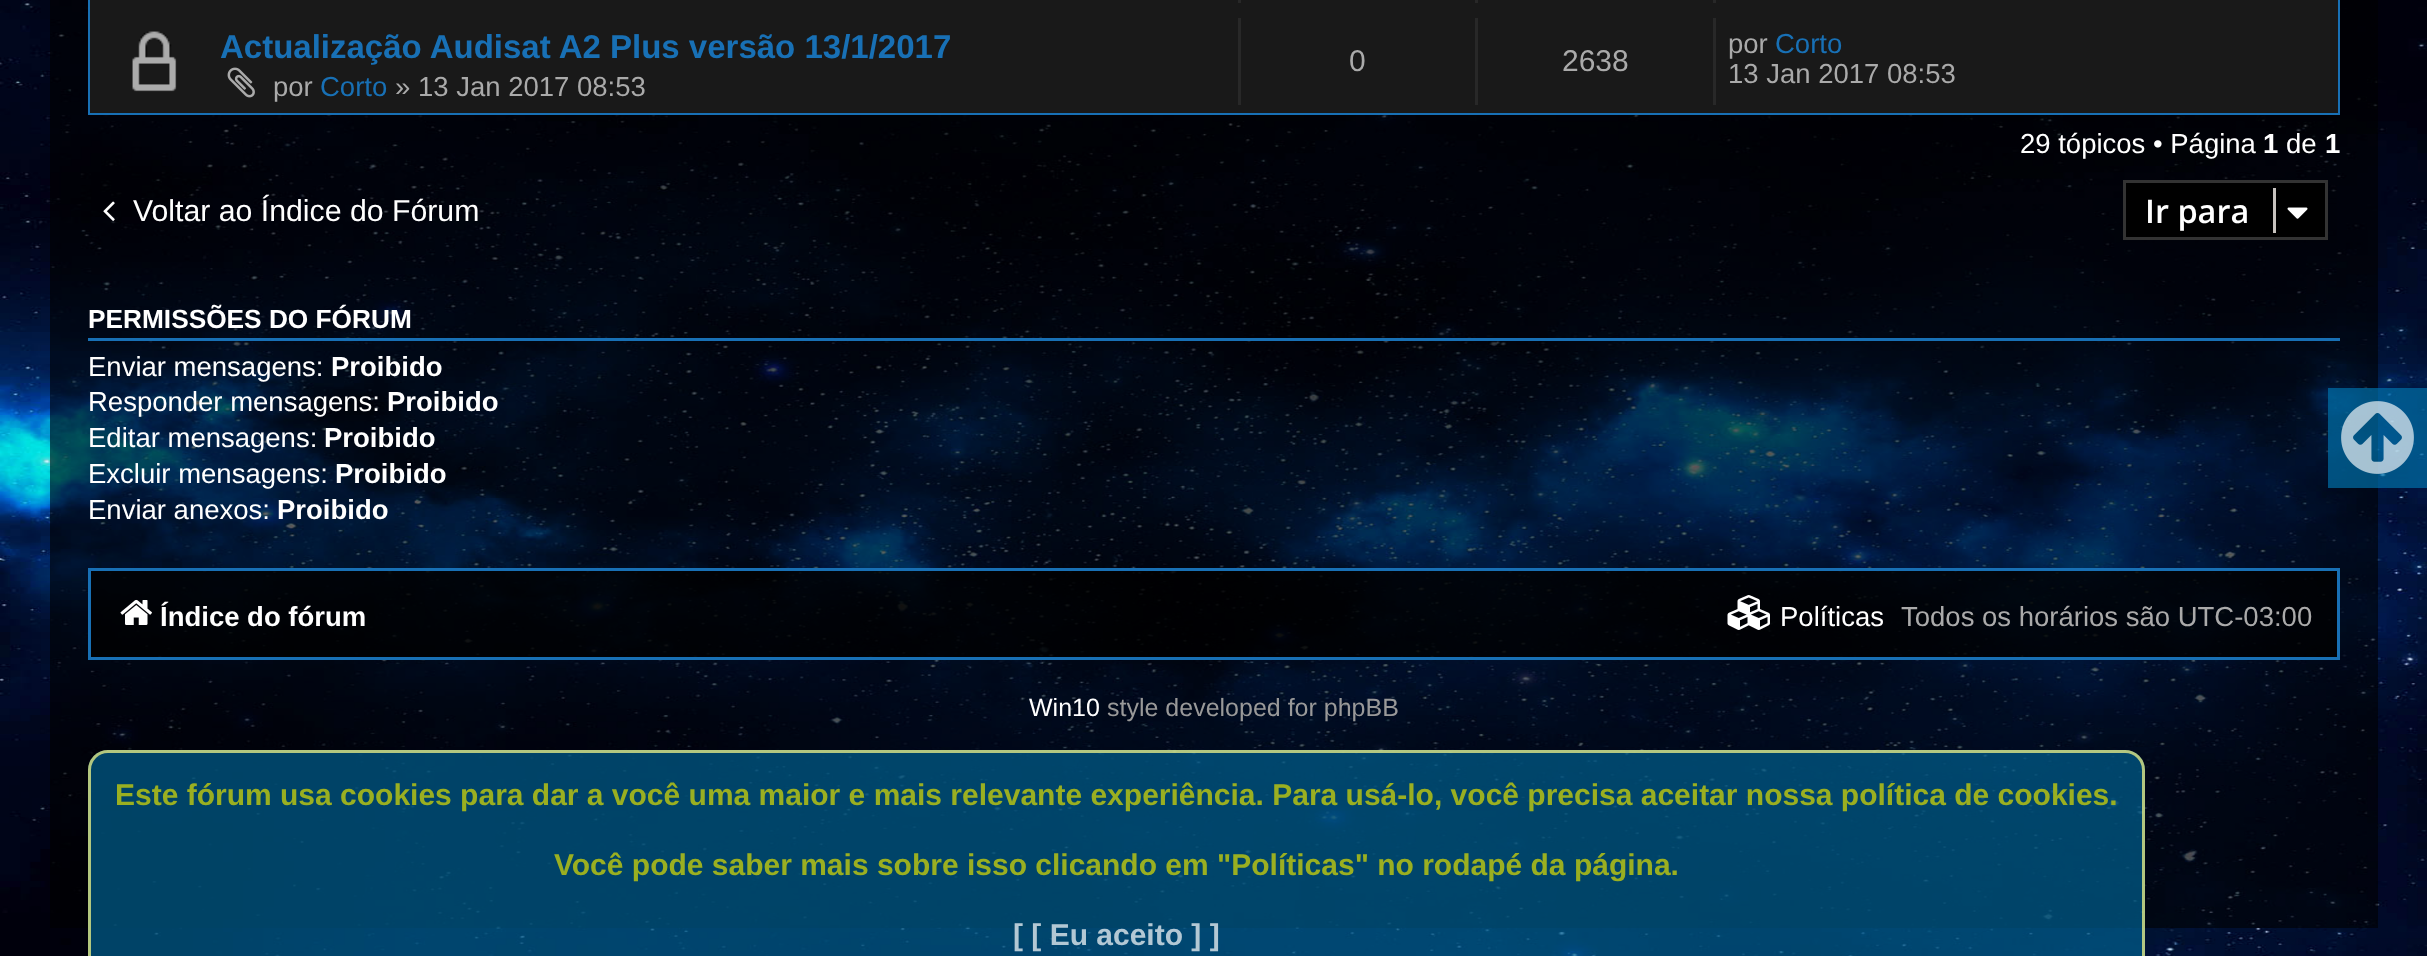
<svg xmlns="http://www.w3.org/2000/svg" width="2427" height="956">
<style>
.a{font:bold 33px Liberation Sans;fill:#1870b5}
.b{font:27.5px Liberation Sans;fill:#aaa}
.c{font:27.5px Liberation Sans;fill:#1870b5}
.d{font:30px Liberation Sans;fill:#aaa}
.e{font:27.5px Liberation Sans;fill:#fff}
.f{font:bold 27.5px Liberation Sans;fill:#fff}
.g{font:30.25px Liberation Sans;fill:#fff}
.h{font:600 32.5px Open Sans;fill:#fff}
.i{font:bold 26.25px Liberation Sans;fill:#fff}
.j{font:25px Liberation Sans;fill:#fff}
.k{font:25px Liberation Sans;fill:#999}
.l{font:bold 30px Liberation Sans;fill:#9aaf21}
.m{font:bold 30px Liberation Sans;fill:#b3c8d4}
</style>
<rect width="100%" height="100%" fill="#fff"/>
<image href="1.png" x="0" y="0" width="2427" height="956"/>
<path fill="none" stroke="#1870b5" stroke-width="3" d="M89.5 -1.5h2249v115H89.5z"/>
<path fill="#191919" d="M90 0h2248v113H90z"/>
<path fill="#282828" d="M1238 0h3v3H1238z"/>
<path fill="#282828" d="M1475 0h3v3H1475z"/>
<path fill="#282828" d="M1713 0h3v3H1713z"/>
<image href="2.png" x="132" y="31" width="45" height="61"/>
<image href="3.png" x="227" y="67" width="28" height="31"/>
<path fill="#282828" d="M1238 18h3v87H1238z"/>
<path fill="#282828" d="M1475 18h3v87H1475z"/>
<path fill="#282828" d="M1713 18h3v87H1713z"/>
<image href="4.png" x="103" y="201" width="12" height="20"/>
<path fill="#000" stroke="#333" stroke-width="3" d="M2124.5 181.5h202v57H2124.5z"/>
<path fill="#c7c3bf" d="M2273 188h3v45H2273z"/>
<image href="5.png" x="2287" y="207" width="21" height="12"/>
<path fill="#1870b5" d="M88 338h2252v3H88z"/>
<path fill="#000000cc" stroke="#1870b5" stroke-width="3" d="M89.5 569.5h2249v89H89.5z"/>
<image href="6.png" x="120" y="599" width="32" height="26"/>
<image href="7.png" x="1727" y="595" width="43" height="35"/>
<rect fill="#00608fb3" x="88" y="750" width="2057" height="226" rx="20"/>
<rect fill="none" stroke="#ffff8ab3" stroke-width="3" x="89.5" y="751.5" width="2054" height="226" rx="18.5"/>
<path fill="#0076b1a6" d="M2328 388h99v100H2328z"/>
<image href="8.png" x="2341" y="401" width="73" height="73"/>
<text class="a" x="220" y="58">Actualização Audisat A2 Plus versão 13/1/2017</text>
<text class="b" x="273" y="96">por</text>
<text class="c" x="320" y="96">Corto</text>
<text class="b" x="395" y="96">» 13 Jan 2017 08:53</text>
<text class="d" x="1349" y="71">0</text>
<text class="d" x="1562" y="71">2638</text>
<text class="b" x="1728" y="53">por</text>
<text class="c" x="1775" y="53">Corto</text>
<text class="b" x="1728" y="83">13 Jan 2017 08:53</text>
<text class="e" x="2020" y="153">29 tópicos • Página</text>
<text class="f" x="2263" y="153">1</text>
<text class="e" x="2286" y="153">de</text>
<text class="f" x="2325" y="153">1</text>
<text class="g" x="133" y="221">Voltar ao Índice do Fórum</text>
<text class="h" x="2145" y="223">Ir para</text>
<text class="i" x="88" y="328">PERMISSÕES DO FÓRUM</text>
<text class="e" x="88" y="376">Enviar mensagens:</text>
<text class="f" x="331" y="376">Proibido</text>
<text class="e" x="88" y="411">Responder mensagens:</text>
<text class="f" x="387" y="411">Proibido</text>
<text class="e" x="88" y="447">Editar mensagens:</text>
<text class="f" x="324" y="447">Proibido</text>
<text class="e" x="88" y="483">Excluir mensagens:</text>
<text class="f" x="335" y="483">Proibido</text>
<text class="e" x="88" y="519">Enviar anexos:</text>
<text class="f" x="277" y="519">Proibido</text>
<text class="f" x="160" y="626">Índice do fórum</text>
<text class="e" x="1780" y="626">Políticas</text>
<text class="b" x="1901" y="626">Todos os horários são UTC-03:00</text>
<text class="j" x="1029" y="716">Win10</text>
<text class="k" x="1107" y="716">style developed for phpBB</text>
<text class="l" x="115" y="805">Este fórum usa cookies para dar a você uma maior e mais relevante experiência. Para usá-lo, você precisa aceitar nossa política de cookies.</text>
<text class="l" x="554" y="875">Você pode saber mais sobre isso clicando em "Políticas" no rodapé da página.</text>
<text class="m" x="1013" y="945">[ [ Eu aceito ] ]</text>
</svg>
